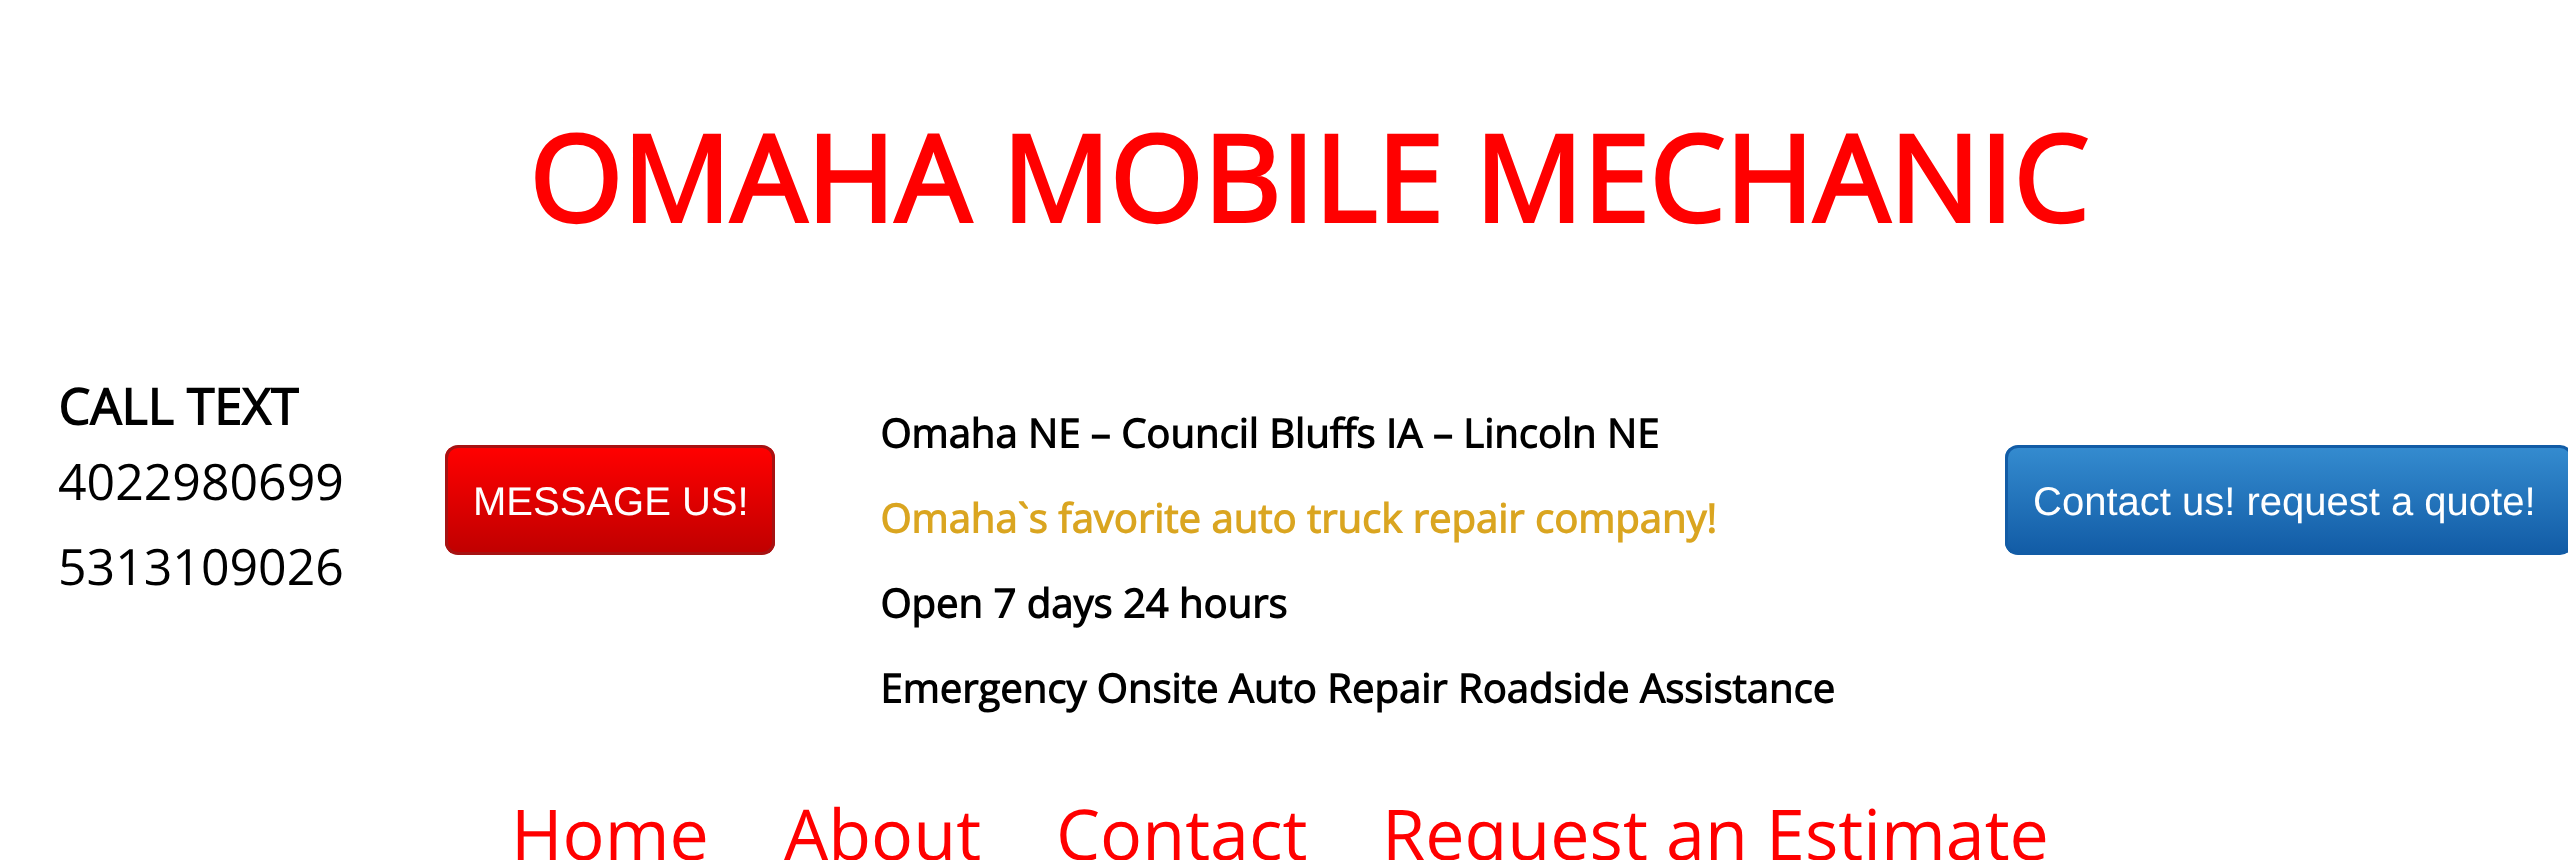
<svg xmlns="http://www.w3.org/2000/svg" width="2568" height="860">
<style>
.a{font:bold 120px Open Sans;fill:#f00}
.b{font:bold 50px Open Sans;fill:#000}
.c{font:50px Open Sans;fill:#000}
.d{font:40px Liberation Sans;fill:#fff}
.e{font:bold 40px Open Sans;fill:#000}
.f{font:bold 40px Open Sans;fill:#daa520}
.g{font:70px Open Sans;fill:#f00}
</style>
<defs>
<clipPath id="clip1"><rect x="445" y="445" width="330" height="110" rx="13"/></clipPath>
<linearGradient id="g1" gradientUnits="userSpaceOnUse" x1="610" y1="448" x2="610" y2="553"><stop offset="0" stop-color="#f00"/><stop offset="1" stop-color="#c00000"/></linearGradient>
<clipPath id="clip2"><rect x="2005" y="445" width="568" height="110" rx="13"/></clipPath>
<linearGradient id="g2" gradientUnits="userSpaceOnUse" x1="2289" y1="448" x2="2289" y2="553"><stop offset="0" stop-color="#348bcf"/><stop offset="1" stop-color="#125ca6"/></linearGradient>
</defs>
<rect width="100%" height="100%" fill="#fff"/>
<g clip-path="url(#clip1)">
<path fill="url(#g1)" d="M445 448h330v105H445z"/>
</g>
<rect fill="none" stroke="#a61212" stroke-width="3" x="446.5" y="446.5" width="327" height="107" rx="11.5"/>
<g clip-path="url(#clip2)">
<path fill="url(#g2)" d="M2005 448h563v105H2005z"/>
</g>
<rect fill="none" stroke="#125ca6" stroke-width="3" x="2006.5" y="446.5" width="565" height="107" rx="11.5"/>
<text class="a" x="528" y="223">OMAHA MOBILE MECHANIC</text>
<text class="b" x="58" y="425">CALL TEXT</text>
<text class="c" x="58" y="500">4022980699</text>
<text class="c" x="58" y="585">5313109026</text>
<text class="d" x="473" y="515">MESSAGE US!</text>
<text class="e" x="880" y="448">Omaha NE – Council Bluffs IA – Lincoln NE</text>
<text class="f" x="880" y="533">Omaha`s favorite auto truck repair company!</text>
<text class="e" x="880" y="618">Open 7 days 24 hours</text>
<text class="e" x="880" y="703">Emergency Onsite Auto Repair Roadside Assistance</text>
<text class="d" x="2033" y="515">Contact us! request a quote!</text>
<text class="g" x="511" y="860">Home</text>
<text class="g" x="784" y="860">About</text>
<text class="g" x="1056" y="860">Contact</text>
<text class="g" x="1382" y="860">Request an Estimate</text>
</svg>
